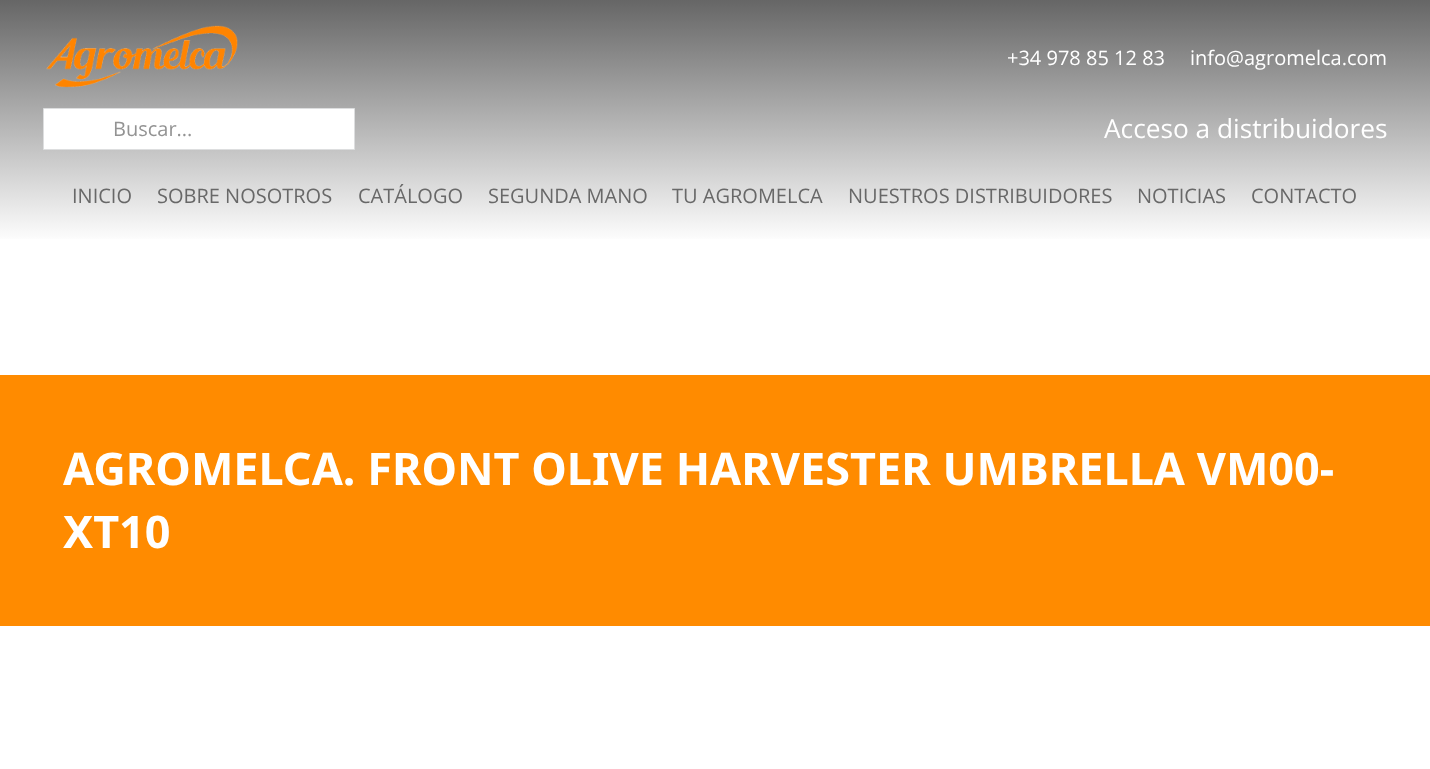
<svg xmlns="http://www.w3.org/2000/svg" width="1430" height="769">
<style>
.a{font:20px Open Sans;fill:#fff}
.b{font:20px Open Sans;fill:#939393}
.c{font:26.25px Open Sans;fill:#fff}
.d{font:20px Open Sans;fill:#686868}
.e{font:bold 45px Noto Sans;fill:#fff}
</style>
<defs>
<linearGradient id="g1" gradientUnits="userSpaceOnUse" x1="715" y1="243" x2="715" y2="0"><stop offset="0" stop-color="#fff"/><stop offset="1" stop-color="#666"/></linearGradient>
</defs>
<rect width="100%" height="100%" fill="#fff"/>
<path fill="url(#g1)" d="M0 0h1430v239H0z"/>
<image href="1.png" x="46" y="25" width="192" height="63"/>
<path fill="#fff" stroke="#dddedf" d="M43.5 108.5h311v41H43.5z"/>
<path fill="#ff8b00" d="M0 375h1430v251H0z"/>
<text class="a" x="1007" y="65">+34 978 85 12 83</text>
<text class="a" x="1190" y="65">info@agromelca.com</text>
<text class="b" x="113" y="136">Buscar...</text>
<text class="c" x="1104" y="138">Acceso a distribuidores</text>
<text class="d" x="72" y="203">INICIO</text>
<text class="d" x="157" y="203">SOBRE NOSOTROS</text>
<text class="d" x="358" y="203">CATÁLOGO</text>
<text class="d" x="488" y="203">SEGUNDA MANO</text>
<text class="d" x="672" y="203">TU AGROMELCA</text>
<text class="d" x="848" y="203">NUESTROS DISTRIBUIDORES</text>
<text class="d" x="1137" y="203">NOTICIAS</text>
<text class="d" x="1251" y="203">CONTACTO</text>
<text class="e" x="63" y="485">AGROMELCA. FRONT OLIVE HARVESTER UMBRELLA VM00-</text>
<text class="e" x="63" y="548">XT10</text>
</svg>
